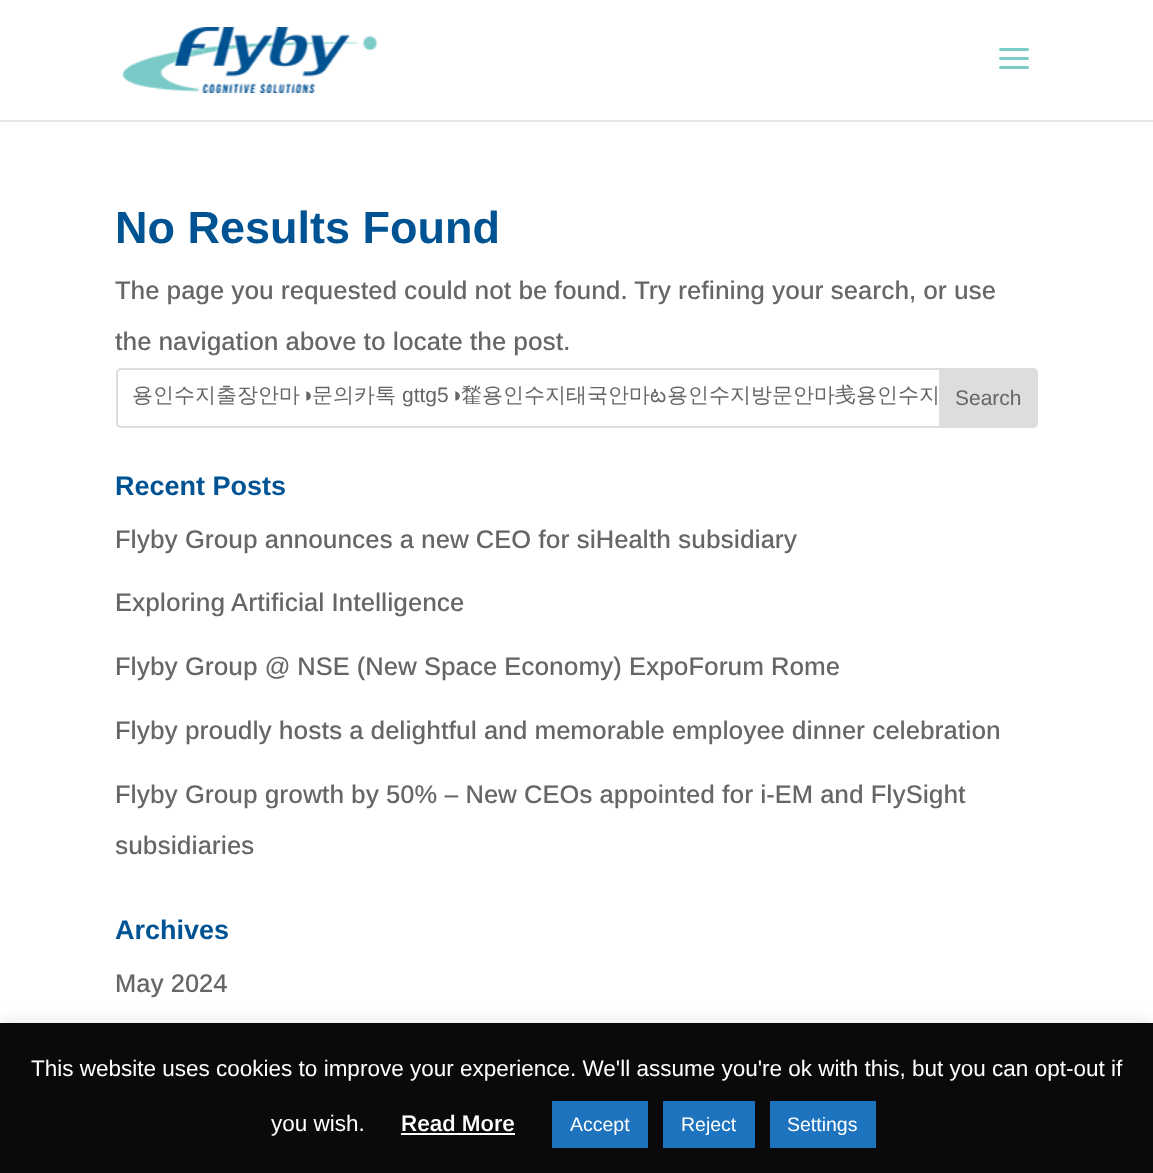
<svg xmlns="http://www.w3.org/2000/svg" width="1153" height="1173">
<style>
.a{font:bold 45px Arimo;fill:#005393}
.b{font:500 25.5px Arimo;fill:#666}
.c{font:500 21px WenQuanYi Zen Hei;fill:#666}
.d{font:21px Liberation Sans;fill:#666}
.e{font:21px Arimo;fill:#666}
.f{font:21px Noto Sans Telugu;fill:#666}
.g{font:bold 27px Arimo;fill:#005393}
.h{font:22.5px Arimo;fill:#fff}
.i{font:600 22.5px Arimo;fill:#fff}
.j{font:19.5px Arimo;fill:#fff}
</style>
<rect width="100%" height="100%" fill="#fff"/>
<path fill="#e6e6e6" d="M0 120v2h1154v-120v118z"/>
<image href="1.png" x="122" y="27" width="255" height="66"/>
<image href="2.png" x="999" y="48" width="30" height="21"/>
<rect fill="none" stroke="#ddd" stroke-width="2" x="117" y="369" width="920" height="58" rx="4"/>
<path fill="#ddd" stroke="#ddd" stroke-width="2" d="M940 369h93c2 0 4 2 4 4v50c0 2-2 4-4 4h-93z"/>
<path fill="#acabab4d" filter="blur(7.5px)" d="M0 1022h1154v150H0z"/>
<path fill="#0a0a0a" d="M0 1023h1153v150H0z"/>
<path fill="#fff" d="M401 1133h114v2H401z"/>
<path fill="#1e73be" d="M552 1101h96v47H552z"/>
<path fill="#1e73be" d="M663 1101h92v47H663z"/>
<path fill="#1e73be" d="M770 1101h106v47H770z"/>
<text class="a" x="115" y="243">No Results Found</text>
<text class="b" x="115" y="299">The page you requested could not be found. Try refining your search, or use</text>
<text class="b" x="115" y="350">the navigation above to locate the post.</text>
<text class="c" x="132" y="402">용인수지출장안마</text>
<text class="d" x="300" y="402">◑</text>
<text class="c" x="312" y="402">문의카톡</text>
<text class="e" x="402" y="402">gttg5</text>
<text class="d" x="449" y="402">◑</text>
<text class="c" x="461" y="402">䨂용인수지태국안마</text>
<text class="f" x="650" y="402">ట</text>
<text class="c" x="667" y="402">용인수지방문안마㦮용인수지</text>
<text class="e" x="955" y="405">Search</text>
<text class="g" x="115" y="495">Recent Posts</text>
<text class="b" x="115" y="548">Flyby Group announces a new CEO for siHealth subsidiary</text>
<text class="b" x="115" y="611">Exploring Artificial Intelligence</text>
<text class="b" x="115" y="675">Flyby Group @ NSE (New Space Economy) ExpoForum Rome</text>
<text class="b" x="115" y="739">Flyby proudly hosts a delightful and memorable employee dinner celebration</text>
<text class="b" x="115" y="803">Flyby Group growth by 50% – New CEOs appointed for i-EM and FlySight</text>
<text class="b" x="115" y="854">subsidiaries</text>
<text class="g" x="115" y="939">Archives</text>
<text class="b" x="115" y="992">May 2024</text>
<text class="h" x="31" y="1076">This website uses cookies to improve your experience. We'll assume you're ok with this, but you can opt-out if</text>
<text class="h" x="271" y="1131">you wish.</text>
<text class="i" x="401" y="1131">Read More</text>
<text class="j" x="570" y="1131">Accept</text>
<text class="j" x="681" y="1131">Reject</text>
<text class="j" x="787" y="1131">Settings</text>
</svg>
